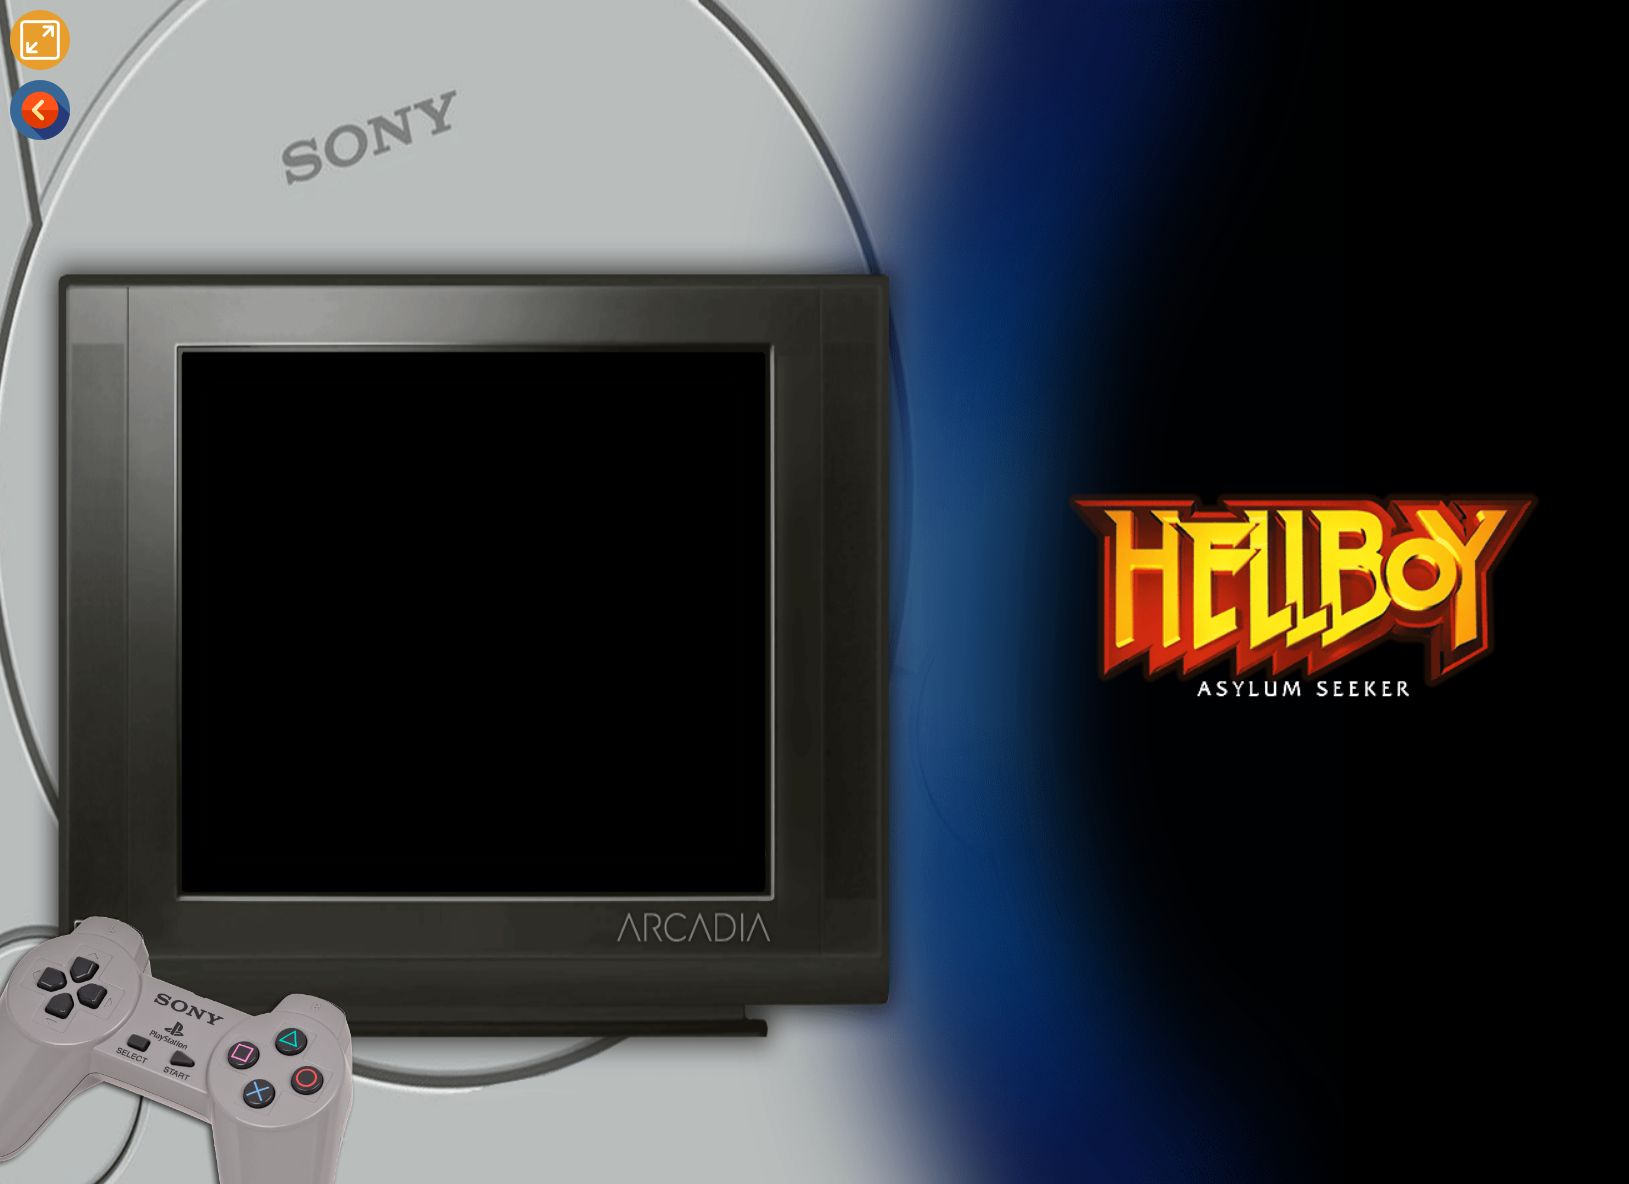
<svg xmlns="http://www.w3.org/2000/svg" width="1629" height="1184">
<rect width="100%" height="100%" fill="#000"/>
<image href="1.png" x="0" y="0" width="1344" height="1184"/>
<image href="2.png" x="10" y="10" width="60" height="60"/>
<image href="3.png" x="10" y="80" width="60" height="60"/>
<image href="4.png" x="1067" y="492" width="473" height="205"/>
<image href="5.png" x="0" y="915" width="355" height="269"/>
</svg>
